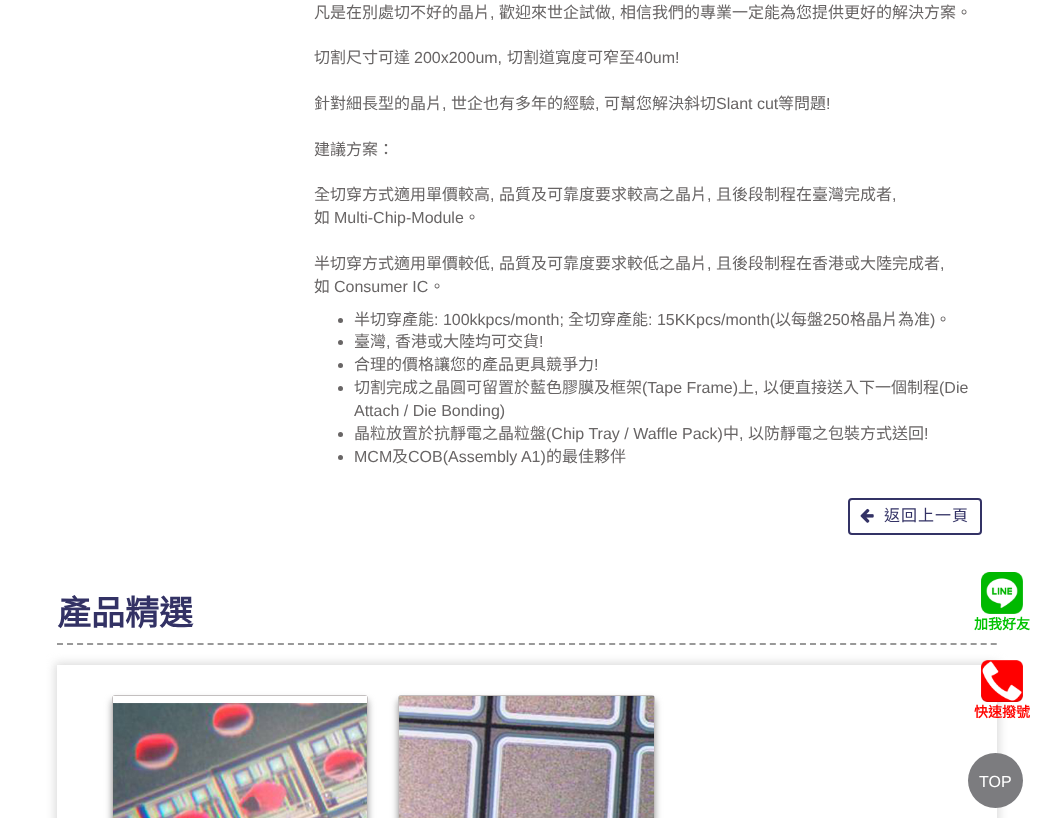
<svg xmlns="http://www.w3.org/2000/svg" width="1053" height="818">
<style>
.a{font:16px Noto Sans CJK TC;fill:#686565}
.b{font:16px Liberation Sans;fill:#686565}
.c{font:16px Noto Sans CJK TC;letter-spacing:1px;fill:#333265}
.d{font:bold 34px Noto Sans CJK TC;fill:#333265}
.e{font:bold 14px Noto Sans CJK TC;fill:#00c300}
.f{font:bold 14px Noto Sans CJK TC;fill:#ff0400}
.g{font:16px Liberation Sans;fill:#fff}
</style>
<defs>
<clipPath id="clip1"><path d="M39 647h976v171h-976zm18 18h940v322h-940z" clip-rule="evenodd"/></clipPath>
</defs>
<rect width="100%" height="100%" fill="#fff"/>
<circle fill="#686565" cx="340.5" cy="320.5" r="2.5"/>
<circle fill="#686565" cx="340.5" cy="342.5" r="2.5"/>
<circle fill="#686565" cx="340.5" cy="365.5" r="2.5"/>
<circle fill="#686565" cx="340.5" cy="388.5" r="2.5"/>
<circle fill="#686565" cx="340.5" cy="434.5" r="2.5"/>
<circle fill="#686565" cx="340.5" cy="457.5" r="2.5"/>
<rect fill="none" stroke="#333265" stroke-width="2" x="849" y="499" width="132" height="35" rx="3"/>
<image href="1.png" x="860" y="508" width="14" height="15"/>
<path fill="none" stroke="#999" stroke-width="2" stroke-dasharray="6 4.04" d="M57 644h940"/>
<g clip-path="url(#clip1)">
<path fill="#dadada" filter="blur(5px)" d="M55 663h944v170H55z"/>
</g>
<rect fill="#999" filter="blur(3.5px)" x="112" y="700" width="256" height="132" rx="3"/>
<rect fill="none" stroke="#c3bfbf" x="112.5" y="695.5" width="255" height="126" rx="2.5"/>
<image href="2.png" x="113" y="696" width="254" height="122"/>
<rect fill="#999" filter="blur(3.5px)" x="398" y="700" width="257" height="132" rx="3"/>
<rect fill="none" stroke="#c3bfbf" x="398.5" y="695.5" width="256" height="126" rx="2.5"/>
<image href="3.png" x="399" y="696" width="255" height="122"/>
<image href="4.png" x="981" y="572" width="42" height="42"/>
<image href="5.png" x="981" y="660" width="42" height="42"/>
<circle fill="#7c7c7f" cx="995.5" cy="780.5" r="27.5"/>
<text class="a" x="314" y="18">凡是在別處切不好的晶片</text>
<text class="b" x="490" y="18">,</text>
<text class="a" x="499" y="18">歡迎來世企試做</text>
<text class="b" x="611" y="18">,</text>
<text class="a" x="620" y="18">相信我們的專業一定能為您提供更好的解決方案。</text>
<text class="a" x="314" y="63">切割尺寸可達</text>
<text class="b" x="414" y="63">200x200um,</text>
<text class="a" x="507" y="63">切割道寬度可窄至</text>
<text class="b" x="635" y="63">40um!</text>
<text class="a" x="314" y="109">針對細長型的晶片</text>
<text class="a" x="451" y="109">世企也有多年的經驗</text>
<text class="a" x="604" y="109">可幫您解決斜切</text>
<text class="b" x="716" y="109">Slant cut</text>
<text class="a" x="778" y="109">等問題</text>
<text class="b" x="826" y="109">!</text>
<text class="b" x="442" y="109">,</text>
<text class="b" x="595" y="109">,</text>
<text class="a" x="314" y="155">建議方案：</text>
<text class="a" x="314" y="200">全切穿方式適用單價較高</text>
<text class="b" x="490" y="200">,</text>
<text class="a" x="499" y="200">品質及可靠度要求較高之晶片</text>
<text class="b" x="707" y="200">,</text>
<text class="a" x="716" y="200">且後段制程在臺灣完成者</text>
<text class="b" x="892" y="200">,</text>
<text class="a" x="314" y="223">如</text>
<text class="b" x="334" y="223">Multi-Chip-Module</text>
<text class="a" x="464" y="223">。</text>
<text class="a" x="314" y="269">半切穿方式適用單價較低</text>
<text class="b" x="490" y="269">,</text>
<text class="a" x="499" y="269">品質及可靠度要求較低之晶片</text>
<text class="b" x="707" y="269">,</text>
<text class="a" x="716" y="269">且後段制程在香港或大陸完成者</text>
<text class="b" x="940" y="269">,</text>
<text class="a" x="314" y="292">如</text>
<text class="b" x="334" y="292">Consumer IC</text>
<text class="a" x="429" y="292">。</text>
<text class="a" x="354" y="325">半切穿產能</text>
<text class="b" x="434" y="325">: 100kkpcs/month;</text>
<text class="a" x="568" y="325">全切穿產能</text>
<text class="b" x="648" y="325">: 15KKpcs/month(</text>
<text class="a" x="775" y="325">以每盤</text>
<text class="b" x="823" y="325">250</text>
<text class="a" x="850" y="325">格晶片為准</text>
<text class="b" x="930" y="325">)</text>
<text class="a" x="935" y="325">。</text>
<text class="a" x="354" y="347">臺灣</text>
<text class="a" x="395" y="347">香港或大陸均可交貨</text>
<text class="b" x="539" y="347">!</text>
<text class="b" x="386" y="347">,</text>
<text class="a" x="354" y="370">合理的價格讓您的產品更具競爭力</text>
<text class="b" x="594" y="370">!</text>
<text class="a" x="354" y="393">切割完成之晶圓可留置於藍色膠膜及框架</text>
<text class="b" x="642" y="393">(Tape Frame)</text>
<text class="a" x="738" y="393">上</text>
<text class="a" x="763" y="393">以便直接送入下一個制程</text>
<text class="b" x="939" y="393">(Die</text>
<text class="b" x="754" y="393">,</text>
<text class="b" x="354" y="416">Attach / Die Bonding)</text>
<text class="a" x="354" y="439">晶粒放置於抗靜電之晶粒盤</text>
<text class="b" x="546" y="439">(Chip Tray / Waffle Pack)</text>
<text class="a" x="723" y="439">中</text>
<text class="a" x="748" y="439">以防靜電之包裝方式送回</text>
<text class="b" x="924" y="439">!</text>
<text class="b" x="739" y="439">,</text>
<text class="b" x="354" y="462">MCM</text>
<text class="a" x="392" y="462">及</text>
<text class="b" x="408" y="462">COB(Assembly A1)</text>
<text class="a" x="546" y="462">的最佳夥伴</text>
<text class="c" x="884" y="521">返回上一頁</text>
<text class="d" x="57" y="625">產品精選</text>
<text class="e" x="974" y="629">加我好友</text>
<text class="f" x="974" y="717">快速撥號</text>
<text class="g" x="979" y="787">TOP</text>
</svg>
